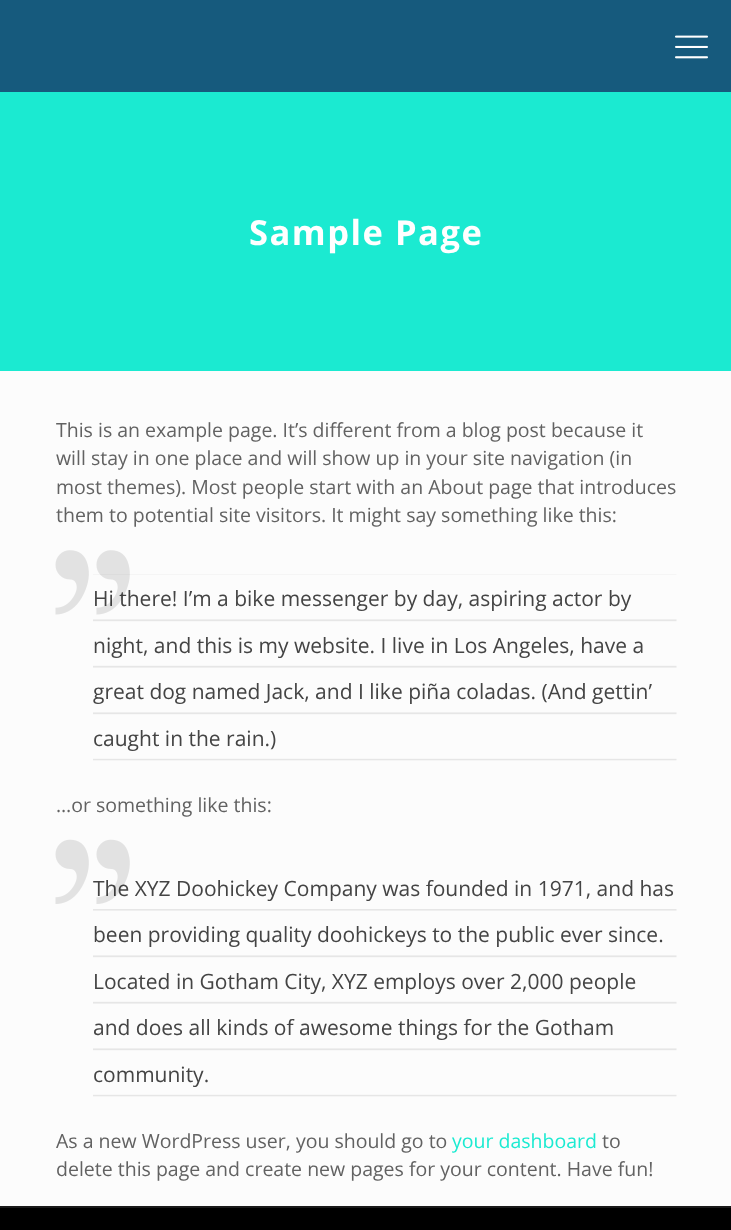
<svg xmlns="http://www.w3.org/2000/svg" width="731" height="1230">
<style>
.a{font:bold 34.5px Open Sans;letter-spacing:1.5px;fill:#fff}
.b{font:19.5px Open Sans;fill:#626262}
.c{font:21px Open Sans;fill:#444}
.d{font:19.5px Open Sans;fill:#1bead1}
</style>
<rect width="100%" height="100%" fill="#fcfcfc"/>
<path fill="#165a7d" d="M0 0h731v92H0z"/>
<image href="1.png" x="675" y="35" width="33" height="24"/>
<path fill="#1bead1" d="M0 92h731v279H0z"/>
<image href="2.png" x="93" y="574" width="584" height="187"/>
<image href="4.png" x="93" y="909" width="584" height="188"/>
<path fill="#000" d="M0 1208h731v22H0z"/>
<path fill="#1a1a1a" d="M0 1206h731v2H0z"/>
<text class="a" x="249" y="245">Sample Page</text>
<text class="b" x="56" y="437">This is an example page. It’s different from a blog post because it</text>
<text class="b" x="56" y="465">will stay in one place and will show up in your site navigation (in</text>
<text class="b" x="56" y="494">most themes). Most people start with an About page that introduces</text>
<text class="b" x="56" y="522">them to potential site visitors. It might say something like this:</text>
<text class="c" x="93" y="606">Hi there! I’m a bike messenger by day, aspiring actor by</text>
<image href="3.png" x="55" y="550" width="75" height="65"/>
<text class="c" x="93" y="653">night, and this is my website. I live in Los Angeles, have a</text>
<text class="c" x="93" y="699">great dog named Jack, and I like piña coladas. (And gettin’</text>
<text class="c" x="93" y="746">caught in the rain.)</text>
<text class="b" x="56" y="812">…or something like this:</text>
<text class="c" x="93" y="896">The XYZ Doohickey Company was founded in 1971, and has</text>
<image href="5.png" x="55" y="839" width="75" height="65"/>
<text class="c" x="93" y="942">been providing quality doohickeys to the public ever since.</text>
<text class="c" x="93" y="989">Located in Gotham City, XYZ employs over 2,000 people</text>
<text class="c" x="93" y="1035">and does all kinds of awesome things for the Gotham</text>
<text class="c" x="93" y="1082">community.</text>
<text class="b" x="56" y="1148">As a new WordPress user, you should go to</text>
<text class="d" x="452" y="1148">your dashboard</text>
<text class="b" x="602" y="1148">to</text>
<text class="b" x="56" y="1176">delete this page and create new pages for your content. Have fun!</text>
</svg>
